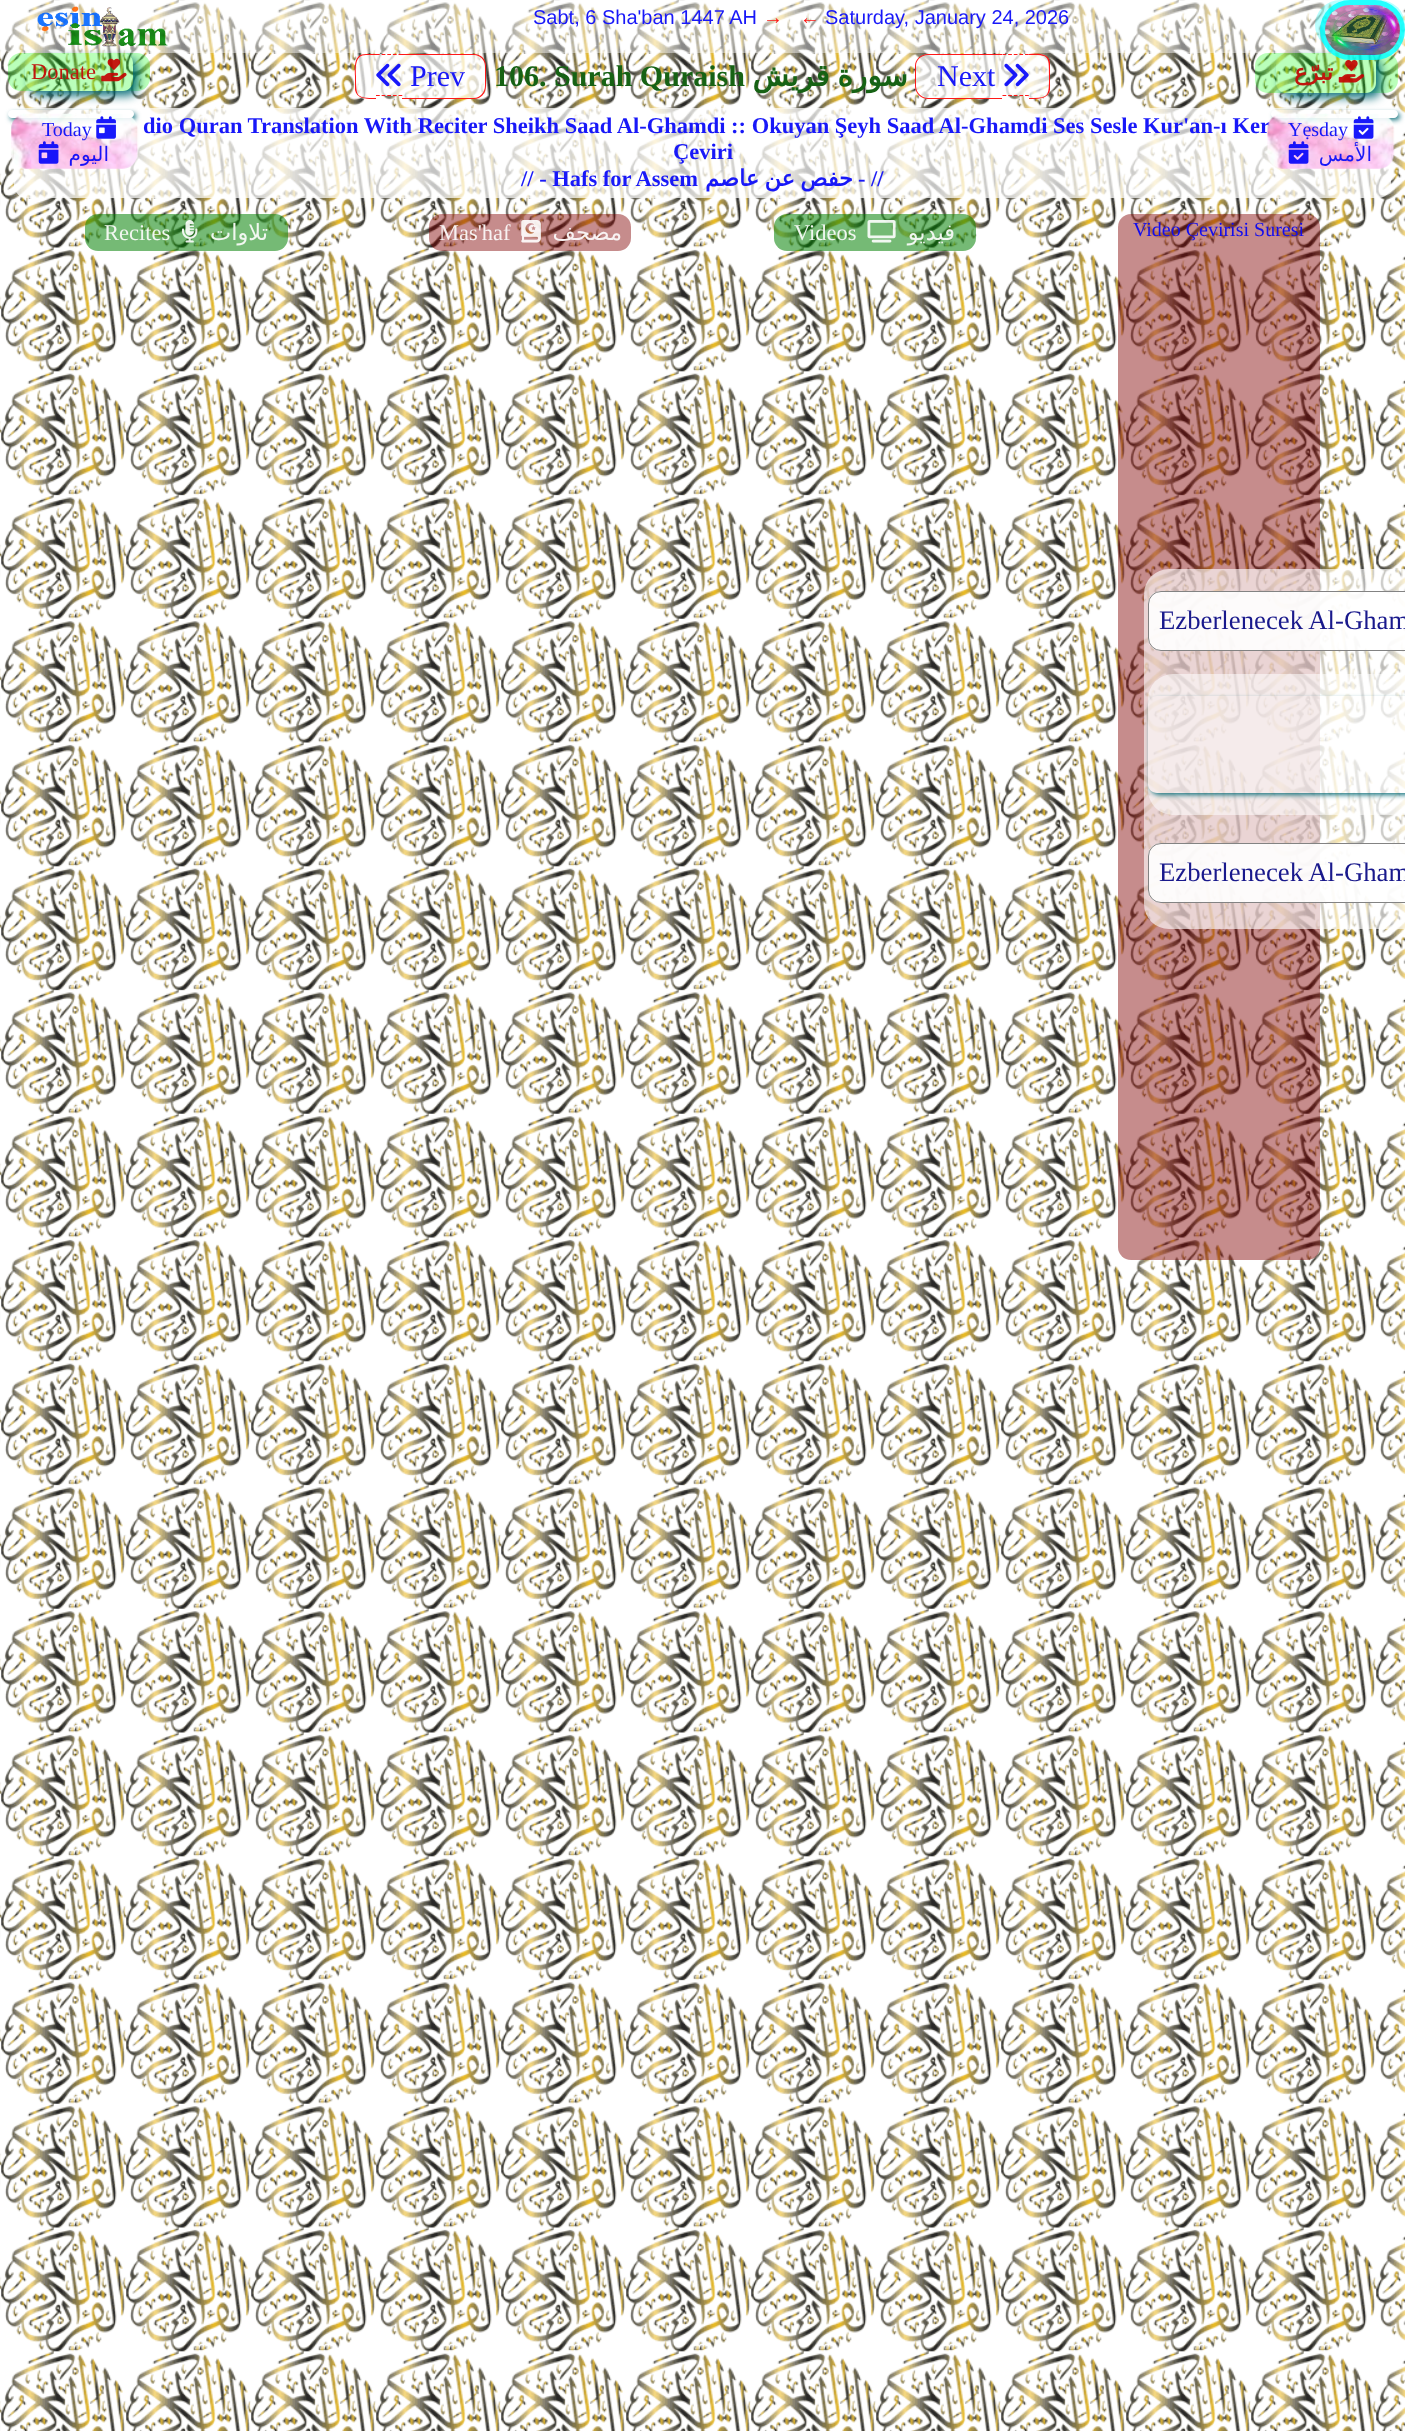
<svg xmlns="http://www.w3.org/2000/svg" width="1405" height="2431">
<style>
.a{font:20px Liberation Sans;fill:#1818f8}
.b{font:20px Liberation Sans;fill:#fd1715}
.c{font:22.5px Liberation Serif;fill:#c0160e}
.d{font:bold 22.5px DejaVu Sans;direction:rtl;fill:#c0160e}
.e{font:20px Liberation Serif;fill:#1818f8}
.f{font:20px DejaVu Sans;direction:rtl;fill:#1912f7}
.g{font:30px Liberation Serif;fill:#1818f8}
.h{font:bold 30px Liberation Serif;fill:#166214}
.i{font:bold 30px DejaVu Sans;direction:rtl;fill:#166214}
.j{font:bold 22.5px Liberation Serif;fill:#1818f8}
.k{font:20px DejaVu Sans;direction:rtl;fill:#1818f8}
.l{font:bold 22.5px DejaVu Sans;direction:rtl;fill:#1818f8}
.m{font:22.5px Liberation Serif;fill:#f1f7f0}
.n{font:22.5px DejaVu Sans;direction:rtl;fill:#f1f7f0}
.o{font:22.5px Liberation Serif;fill:#f8f2f2}
.p{font:22.5px DejaVu Sans;direction:rtl;fill:#f8f2f2}
.q{font:20px Liberation Serif;fill:#120ced}
.r{font:26.75px Liberation Serif;fill:#19198c}
</style>
<defs>
<clipPath id="clip1"><path d="M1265 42h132v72h-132zm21 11h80c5.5 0 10 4.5 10 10v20c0 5.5-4.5 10-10 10h-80c-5.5 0-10-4.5-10-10v-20c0-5.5 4.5-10 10-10z" clip-rule="evenodd"/></clipPath>
<clipPath id="clip2"><path d="M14 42h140v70h-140zm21 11h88c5.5 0 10 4.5 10 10v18c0 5.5-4.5 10-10 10h-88c-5.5 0-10-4.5-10-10v-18c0-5.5 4.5-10 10-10z" clip-rule="evenodd"/></clipPath>
<clipPath id="clip3"><path d="M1 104h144v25h-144zm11 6h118c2 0 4 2 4 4c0 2-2 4-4 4h-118c-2 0-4-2-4-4c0-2 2-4 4-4z" clip-rule="evenodd"/></clipPath>
<clipPath id="clip4"><path d="M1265 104h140v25h-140zm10 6h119c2 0 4 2 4 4c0 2-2 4-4 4h-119c-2 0-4-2-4-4c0-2 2-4 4-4z" clip-rule="evenodd"/></clipPath>
<clipPath id="clip5"><path d="M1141 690h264v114h-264zm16 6h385c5 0 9 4 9 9v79c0 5-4 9-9 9h-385c-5 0-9-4-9-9v-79c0-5 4-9 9-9z" clip-rule="evenodd"/></clipPath>
</defs>
<rect width="100%" height="100%" fill="#fff"/>
<image href="1.png" x="0" y="0" width="1405" height="2431"/>
<rect fill="#ffffff73" width="1405" height="53" rx="13"/>
<rect fill="#00ff0045" x="1255" y="53" width="143" height="40" rx="13"/>
<rect fill="#ffffffb8" x="14" y="108" width="1377" height="90" rx="13"/>
<g clip-path="url(#clip1)">
<rect fill="#006773e6" filter="blur(5px)" x="1281" y="58" width="100" height="40" rx="10"/>
</g>
<rect fill="#00ffff45" x="1315" width="90" height="50" rx="25"/>
<image href="2.png" x="1342" y="7" width="36" height="36"/>
<rect fill="#00ffffcf" x="1320" width="85" height="60" rx="30"/>
<image href="3.png" x="1325" y="5" width="75" height="50"/>
<image href="4.png" x="37" y="6" width="131" height="41"/>
<rect fill="#00ff0045" x="8" y="53" width="142" height="38" rx="13"/>
<g clip-path="url(#clip2)">
<rect fill="#006773e6" filter="blur(5px)" x="30" y="58" width="108" height="38" rx="10"/>
</g>
<image href="5.png" x="101" y="58" width="26" height="24"/>
<image href="6.png" x="1338" y="60" width="26" height="23"/>
<g clip-path="url(#clip3)">
<rect fill="#006773e6" filter="blur(2.5px)" x="10" y="113" width="126" height="7" rx="3.5"/>
</g>
<image href="7.png" x="11" y="113" width="128" height="56"/>
<image href="8.png" x="96" y="116" width="20" height="23"/>
<image href="9.png" x="38" y="141" width="21" height="23"/>
<g clip-path="url(#clip4)">
<rect fill="#006773e6" filter="blur(2.5px)" x="1274" y="113" width="126" height="7" rx="3.5"/>
</g>
<path fill="#ffffffb8" d="M365.5 54h10.5v45h-10.5c-6 0-10.5-4.5-10.5-10.5v-24c0-6 4.5-10.5 10.5-10.5z"/>
<path fill="#ff0000e6" fill-rule="evenodd" d="M366 54h10v45c-7 0-19 1-21-9v-14c0-8-2-22 11-22zm0 1h10v43c-20 0-20-1-20-22c0-7-2-21 10-21z"/>
<path fill="#ffffffb8" d="M376 54h27v42H376z"/>
<path fill="none" stroke="#ff0000e6" stroke-width="1.2" stroke-dasharray="3.75 1.88" d="M376 54.5h26.5m-26.5 41h26.5"/>
<path fill="#ffffffb8" d="M403 54h70c7 0 13 6 13 13v19c0 7-6 13-13 13h-70z"/>
<path fill="#ff0000e6" fill-rule="evenodd" d="M402 54h72c7 0 12 5 12 12v20c0 7-5 13-12 13h-72zm0 1h72c6 0 11 5 11 11v20c0 6-5 12-11 12h-72z"/>
<image href="13.png" x="376" y="63" width="25" height="24"/>
<path fill="#ffffffb8" d="M928 54h75v45h-75c-7 0-13-6-13-13v-19c0-7 6-13 13-13z"/>
<path fill="#ff0000e6" fill-rule="evenodd" d="M928 54h74v45h-74c-7 0-13-6-13-13v-20c0-7 6-12 13-12zm0 1h74v43h-74c-7 0-12-6-12-12v-20c0-6 5-11 12-11z"/>
<path fill="#ffffffb8" d="M1003 54h26v42H1003z"/>
<path fill="none" stroke="#ff0000e6" stroke-width="1.2" stroke-dasharray="3.75 1.88" d="M1002.5 54.5h26.5m-26.5 41h26.5"/>
<path fill="#ffffffb8" d="M1029 54h10.5c6 0 10.5 4.5 10.5 10.5v24c0 6-4.5 10.5-10.5 10.5h-10.5z"/>
<path fill="#ff0000e6" fill-rule="evenodd" d="M1029 54c7 0 19-2 21 8v28c-2 10-14 9-21 9zm0 1c20 0 20 0 20 21c0 21 0 22-20 22z"/>
<image href="14.png" x="1004" y="63" width="25" height="24"/>
<rect fill="#0080008a" x="85" y="214" width="203" height="37" rx="13"/>
<image href="15.png" x="181" y="220" width="17" height="23"/>
<rect fill="#80000073" x="429" y="214" width="202" height="37" rx="13"/>
<image href="16.png" x="521" y="220" width="20" height="23"/>
<rect fill="#0080008a" x="774" y="214" width="202" height="37" rx="13"/>
<image href="17.png" x="867" y="220" width="29" height="23"/>
<rect fill="#80000073" x="1118" y="214" width="202" height="1046" rx="13"/>
<rect fill="#ffffffa1" x="1144" y="569" width="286" height="360" rx="25"/>
<rect fill="#ffffffe6" x="1148" y="591" width="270" height="60" rx="13"/>
<rect fill="none" stroke="#767676e6" x="1148.5" y="591.5" width="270" height="59" rx="12.5"/>
<rect fill="#ffffff8a" x="1148" y="674" width="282" height="141" rx="25"/>
<g clip-path="url(#clip5)">
<rect fill="#006773e6" filter="blur(2.5px)" x="1150" y="699" width="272" height="96" rx="9"/>
</g>
<rect fill="#ffffffe6" x="1148" y="843" width="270" height="60" rx="13"/>
<rect fill="none" stroke="#767676e6" x="1148.5" y="843.5" width="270" height="59" rx="12.5"/>
<text class="a" x="533" y="24">Sabt, 6 Sha'ban 1447 AH</text>
<text class="b" xml:space="preserve" x="763" y="24">→   ←</text>
<text class="a" x="825" y="24">Saturday, January 24, 2026</text>
<text class="c" x="31" y="79">Donate</text>
<text class="d" x="1333" y="80">تبرّع</text>
<text class="e" x="42" y="136">Today</text>
<text class="f" x="109" y="161">اليوم</text>
<text class="g" x="410" y="86">Prev</text>
<text class="h" x="494" y="86">106. Surah Quraish</text>
<text class="i" x="908" y="86" word-spacing="-2">سورة قريش</text>
<text class="g" x="937" y="86">Next</text>
<text class="j" x="143" y="133">dio Quran Translation With Reciter Sheikh Saad Al-Ghamdi :: Okuyan Şeyh Saad Al-Ghamdi Ses Sesle Kur'an-ı Ker</text>
<image href="10.png" x="1267" y="113" width="128" height="56"/>
<image href="12.png" x="1288" y="141" width="21" height="23"/>
<image href="11.png" x="1353" y="116" width="21" height="23"/>
<text class="k" x="1372" y="161">الأمس</text>
<text class="e" x="1288" y="136">Yẹsday</text>
<text class="j" x="673" y="159">Çeviri</text>
<text class="j" x="521" y="186">// - Hafs for Assem</text>
<text class="l" x="853" y="186" word-spacing="-2">حفص عن عاصم</text>
<text class="j" x="858" y="186">- //</text>
<text class="m" x="104" y="240">Recites</text>
<text class="n" x="268" y="240">تلاوات</text>
<text class="o" x="439" y="240">Mas'haf</text>
<text class="p" x="622" y="240">مصحف</text>
<text class="m" x="794" y="240">Videos</text>
<text class="n" x="955" y="240">فيديو</text>
<text class="q" x="1133" y="236">Video Çevirisi Suresi</text>
<text class="r" x="1159" y="629">Ezberlenecek Al-Gham</text>
<text class="r" x="1159" y="881">Ezberlenecek Al-Gham</text>
</svg>
